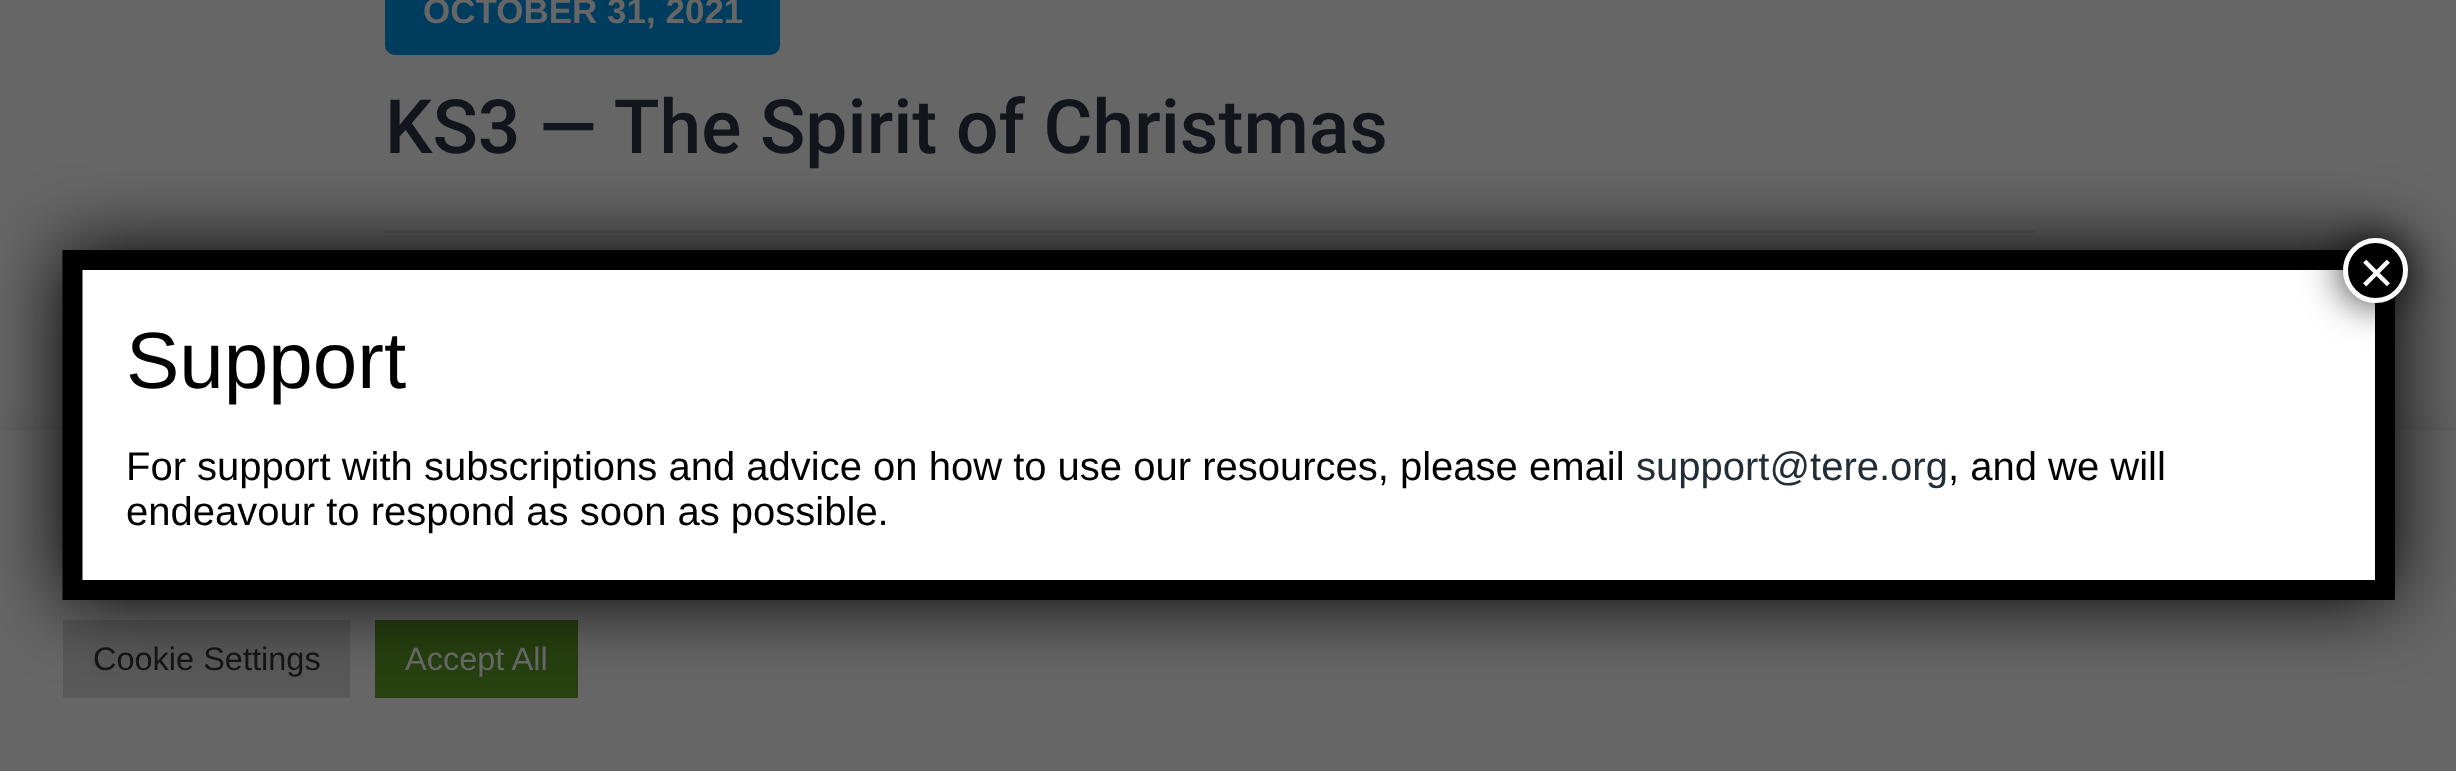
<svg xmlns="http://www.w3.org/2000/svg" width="2456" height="771">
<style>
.a{font:bold 35px Liberation Sans;fill:#666}
.b{font:500 75px Roboto;fill:#12161c}
.c{font:60px Liberation Sans;fill:#fff}
.d{font:80px Liberation Sans;fill:#000}
.e{font:40px Liberation Sans;fill:#000}
.f{font:40px Liberation Sans;fill:#222d35}
.g{font:32.5px Liberation Sans;fill:#141414}
.h{font:32.5px Liberation Sans;fill:#666}
</style>
<rect width="100%" height="100%" fill="#666"/>
<rect fill="#003c5e" x="385" y="-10" width="395" height="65" rx="10"/>
<path fill="#5c5d60" d="M385 230h1650v3H385z"/>
<path fill="#4544444d" filter="blur(12.5px)" d="M0 428h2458v342H0z"/>
<path fill="#666" d="M0 430h2456v341H0z"/>
<path fill="#59595a" d="M63 620h287v78H63z"/>
<path fill="#274110" d="M375 620h203v78H375z"/>
<rect fill="#020202" filter="blur(37.5px)" x="63" y="250" width="2332" height="350" rx="8"/>
<path fill="#fff" d="M82 270h2293v310H82z"/>
<path fill="none" stroke="#000" stroke-width="20" d="M72.5 260h2312.5v330h-2312.5z"/>
<rect fill="#020202bf" filter="blur(19px)" x="2340" y="235" width="70" height="70" rx="35"/>
<circle fill="#000" stroke="#fff" stroke-width="5" cx="2375.5" cy="270.5" r="30"/>
<text class="a" x="423" y="23">OCTOBER 31, 2021</text>
<text class="b" x="385" y="153">KS3 — The Spirit of Christmas</text>
<text class="c" x="2359" y="293">×</text>
<text class="d" x="126" y="388">Support</text>
<text class="e" x="126" y="480">For support with subscriptions and advice on how to use our resources, please email</text>
<text class="f" x="1636" y="480">support@tere.org</text>
<text class="e" x="1948" y="480">, and we will</text>
<text class="e" x="126" y="525">endeavour to respond as soon as possible.</text>
<text class="g" x="93" y="670">Cookie Settings</text>
<text class="h" x="405" y="670">Accept All</text>
</svg>
